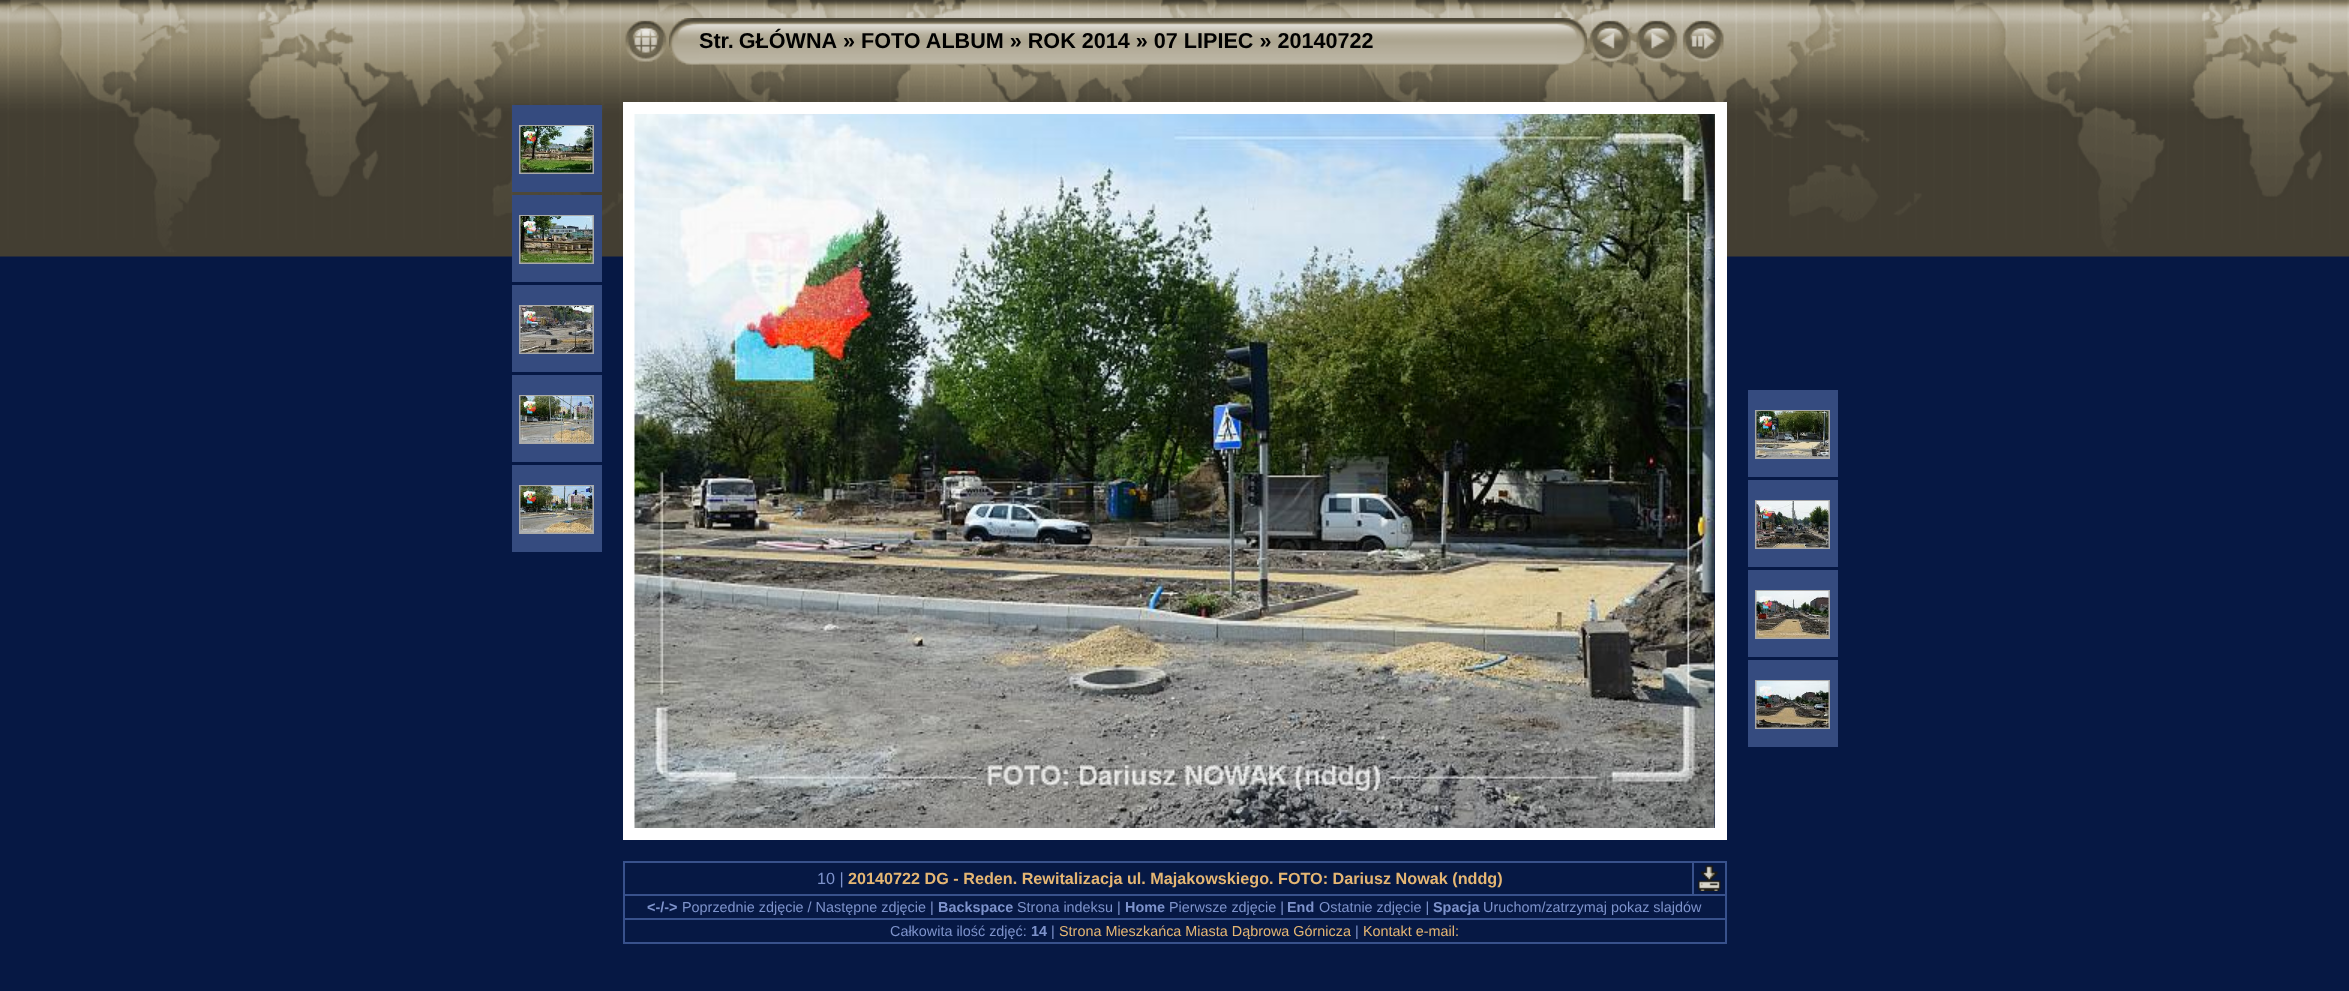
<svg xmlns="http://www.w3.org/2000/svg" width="2349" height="991">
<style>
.a{font:bold 21.6px Liberation Sans;fill:#000}
.b{font:16.2px Liberation Sans;fill:#7e93cc}
.c{font:bold 16.2px Liberation Sans;fill:#e5b673}
.d{font:bold 14.4px Liberation Sans;fill:#7e93cc}
.e{font:14.4px Liberation Sans;fill:#7e93cc}
.f{font:14.4px Liberation Sans;fill:#e5b673}
</style>
<rect width="100%" height="100%" fill="#061844"/>
<image href="1.png" x="0" y="0" width="2349" height="257"/>
<image href="2.png" x="625" y="20" width="42" height="42"/>
<image href="3.png" x="669" y="18" width="30" height="47"/>
<image href="4.png" x="699" y="18" width="858" height="47"/>
<image href="5.png" x="1557" y="18" width="30" height="47"/>
<image href="6.png" x="1589" y="20" width="42" height="42"/>
<image href="7.png" x="1636" y="20" width="42" height="42"/>
<image href="8.png" x="1682" y="20" width="42" height="42"/>
<path fill="#354b7f" d="M512 105h90v87H512z"/>
<path fill="none" stroke="#aaa" stroke-width="2" d="M520 126h73v47H520z"/>
<image href="9.png" x="520" y="126" width="73" height="47"/>
<path fill="#354b7f" d="M512 195h90v87H512z"/>
<path fill="none" stroke="#aaa" stroke-width="2" d="M520 216h73v47H520z"/>
<image href="10.png" x="520" y="216" width="73" height="47"/>
<path fill="#354b7f" d="M512 285h90v87H512z"/>
<path fill="none" stroke="#aaa" stroke-width="2" d="M520 306h73v47H520z"/>
<image href="11.png" x="520" y="306" width="73" height="47"/>
<path fill="#354b7f" d="M512 375h90v87H512z"/>
<path fill="none" stroke="#aaa" stroke-width="2" d="M520 396h73v47H520z"/>
<image href="12.png" x="520" y="396" width="73" height="47"/>
<path fill="#354b7f" d="M512 465h90v87H512z"/>
<path fill="none" stroke="#aaa" stroke-width="2" d="M520 486h73v47H520z"/>
<image href="13.png" x="520" y="486" width="73" height="47"/>
<path fill="none" stroke="#fff" stroke-width="12" d="M629 108h1092v726H629z"/>
<image href="14.png" x="634" y="114" width="1081" height="714"/>
<path fill="#354b7f" d="M1748 390h90v87H1748z"/>
<path fill="none" stroke="#aaa" stroke-width="2" d="M1756 411h73v47H1756z"/>
<image href="15.png" x="1756" y="411" width="73" height="47"/>
<path fill="#354b7f" d="M1748 480h90v87H1748z"/>
<path fill="none" stroke="#aaa" stroke-width="2" d="M1756 501h73v47H1756z"/>
<image href="16.png" x="1756" y="501" width="73" height="47"/>
<path fill="#354b7f" d="M1748 570h90v87H1748z"/>
<path fill="none" stroke="#aaa" stroke-width="2" d="M1756 591h73v47H1756z"/>
<image href="17.png" x="1756" y="591" width="73" height="47"/>
<path fill="#354b7f" d="M1748 660h90v87H1748z"/>
<path fill="none" stroke="#aaa" stroke-width="2" d="M1756 681h73v47H1756z"/>
<image href="18.png" x="1756" y="681" width="73" height="47"/>
<path fill="#38518c" d="M1692 861h35v2H1692z"/>
<path fill="#38518c" d="M623 894h1104v2H623z"/>
<path fill="#38518c" d="M1692 861h2v35H1692z"/>
<path fill="#38518c" d="M623 861h1071v2H623z"/>
<path fill="#38518c" d="M623 918h1104v2H623z"/>
<path fill="#38518c" d="M1725 918h2v26H1725z"/>
<path fill="#38518c" d="M623 942h1104v2H623z"/>
<path fill="#38518c" d="M623 918h2v26H623z"/>
<path fill="#38518c" d="M623 894h2v26H623z"/>
<path fill="#38518c" d="M623 861h2v35H623z"/>
<path fill="#38518c" d="M1725 894h2v26H1725z"/>
<path fill="#38518c" d="M1725 861h2v35H1725z"/>
<image href="19.png" x="1697" y="865" width="24" height="26"/>
<text class="a" x="699" y="48" word-spacing="-1">Str. GŁÓWNA</text>
<text class="a" x="843" y="48">» FOTO ALBUM » ROK 2014 » 07 LIPIEC » 20140722</text>
<text class="b" x="817" y="884">10 |</text>
<text class="c" x="848" y="884">20140722 DG - Reden. Rewitalizacja ul. Majakowskiego. FOTO: Dariusz Nowak (nddg)</text>
<text class="d" x="647" y="912">&lt;-/-&gt;</text>
<text class="e" x="682" y="912">Poprzednie zdjęcie / Następne zdjęcie |</text>
<text class="d" x="938" y="912">Backspace</text>
<text class="e" x="1017" y="912">Strona indeksu |</text>
<text class="d" x="1125" y="912">Home</text>
<text class="e" x="1169" y="912">Pierwsze zdjęcie |</text>
<text class="d" x="1287" y="912">End</text>
<text class="e" x="1319" y="912">Ostatnie zdjęcie |</text>
<text class="d" x="1433" y="912">Spacja</text>
<text class="e" x="1483" y="912">Uruchom/zatrzymaj pokaz slajdów</text>
<text class="e" x="890" y="936">Całkowita ilość zdjęć:</text>
<text class="d" x="1031" y="936">14</text>
<text class="e" x="1051" y="936">|</text>
<text class="f" x="1059" y="936">Strona Mieszkańca Miasta Dąbrowa Górnicza</text>
<text class="e" x="1355" y="936">|</text>
<text class="f" x="1363" y="936">Kontakt e-mail:</text>
</svg>
